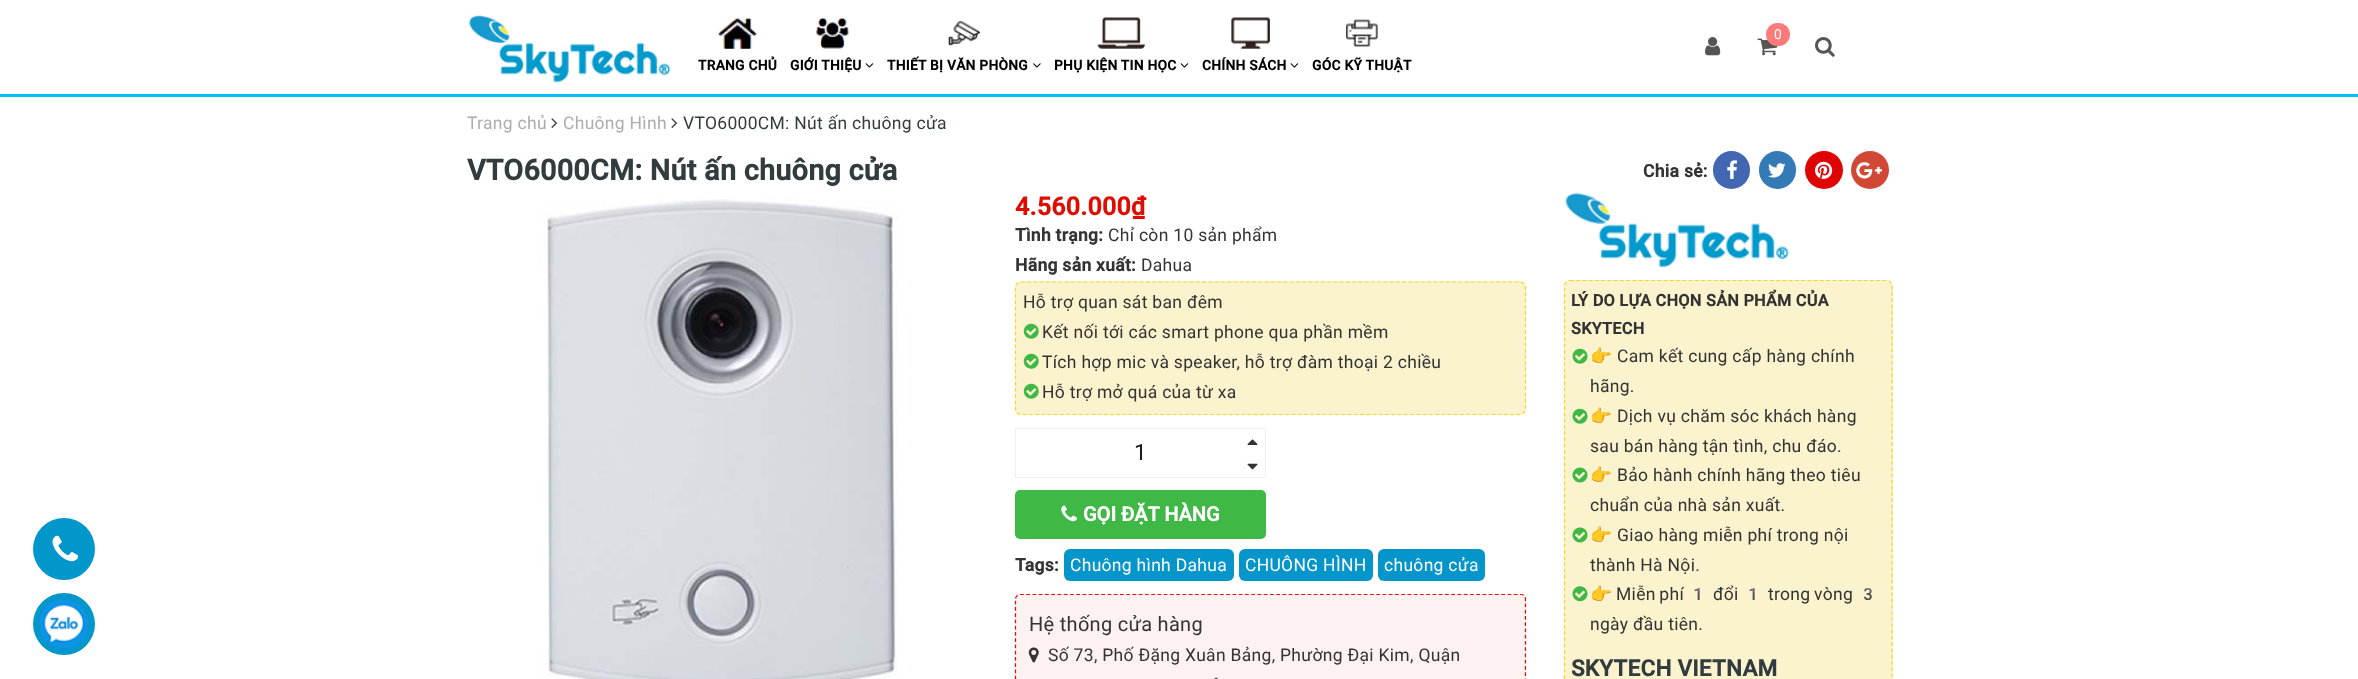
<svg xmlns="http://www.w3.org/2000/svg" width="2358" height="679">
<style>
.a{font:13.75px Roboto;letter-spacing:0.3px;fill:#fff}
.b{font:bold 13.75px Roboto;letter-spacing:0.3px;fill:#010101}
.c{font:17.5px Roboto;letter-spacing:0.3px;fill:#adadad}
.d{font:17.5px Roboto;letter-spacing:0.3px;fill:#323c3f}
.e{font:bold 28.75px Roboto;letter-spacing:0.3px;fill:#323c3f}
.f{font:bold 17.5px Roboto;letter-spacing:0.3px;fill:#333}
.g{font:bold 25px Roboto;letter-spacing:0.3px;fill:#e10c00}
.h{font:17.5px Roboto;letter-spacing:0.3px;fill:#333}
.i{font:22.5px Roboto;letter-spacing:0.3px;fill:#1c1c1c}
.j{font:bold 20px Roboto;fill:#fff}
.k{font:17.5px Roboto;letter-spacing:0.3px;fill:#fff}
.l{font:20px Roboto;letter-spacing:0.3px;fill:#333}
.m{font:bold 16.25px Roboto;letter-spacing:0.3px;fill:#333}
.n{font:17.5px Noto Color Emoji;letter-spacing:0.3px;fill:#333}
.o{font:bold 22.5px Roboto;letter-spacing:0.25px;fill:#323c3f}
</style>
<rect width="100%" height="100%" fill="#fff"/>
<path fill="#03c0fe" d="M0 94h2358v3H0z"/>
<image href="1.png" x="468" y="14" width="203" height="69"/>
<image href="2.png" x="1757" y="38" width="21" height="18"/>
<rect fill="#ff7b7b" x="1766" y="23" width="24" height="23" rx="11.5"/>
<image href="3.png" x="1705" y="37" width="16" height="19"/>
<image href="4.png" x="1815" y="37" width="20" height="20"/>
<image href="5.png" x="717" y="17" width="41" height="32"/>
<image href="6.png" x="816" y="17" width="33" height="32"/>
<image href="7.png" x="865" y="63" width="9" height="5"/>
<image href="8.png" x="948" y="20" width="32" height="26"/>
<image href="9.png" x="1033" y="63" width="8" height="5"/>
<image href="10.png" x="1097" y="17" width="48" height="32"/>
<image href="7.png" x="1180" y="63" width="9" height="5"/>
<image href="11.png" x="1231" y="17" width="39" height="32"/>
<image href="7.png" x="1290" y="63" width="9" height="5"/>
<image href="12.png" x="1346" y="19" width="32" height="28"/>
<image href="13.png" x="551" y="118" width="6" height="10"/>
<image href="13.png" x="671" y="118" width="6" height="10"/>
<circle fill="#0197ca" cx="64" cy="549" r="31"/>
<image href="14.png" x="52" y="535" width="26" height="27"/>
<rect fill="#4267b2" x="1713" y="151" width="37" height="38" rx="18.5"/>
<image href="15.png" x="1727" y="160" width="10" height="19"/>
<rect fill="#337ab7" x="1759" y="151" width="37" height="38" rx="18.5"/>
<image href="16.png" x="1768" y="163" width="18" height="15"/>
<circle fill="#df0303" cx="1824" cy="170" r="19"/>
<image href="17.png" x="1815" y="161" width="18" height="18"/>
<circle fill="#d14836" cx="1870" cy="170" r="19"/>
<image href="18.png" x="1856" y="162" width="26" height="17"/>
<image href="19.png" x="540" y="199" width="358" height="480"/>
<rect fill="#faf3cd" x="1015" y="281" width="511" height="134" rx="6"/>
<path fill="none" stroke="#f6d624" stroke-width="1.2" stroke-dasharray="3.75 2.5" d="M1021 282h499c3 0 5.5 2.5 5.5 5.5v121.5c0 3-2.5 5.5-5.5 5.5h-499c-3 0-5.5-2.5-5.5-5.5v-121.5c0-3 2.5-5.5 5.5-5.5z"/>
<image href="20.png" x="1023" y="323" width="16" height="16"/>
<image href="20.png" x="1023" y="353" width="16" height="16"/>
<image href="20.png" x="1023" y="383" width="16" height="16"/>
<path fill="none" stroke="#eee" d="M1015.5 428.5h250v49H1015.5z"/>
<image href="21.png" x="1247" y="439" width="11" height="6"/>
<image href="22.png" x="1247" y="463" width="11" height="7"/>
<rect fill="#3fb846" x="1015" y="490" width="251" height="49" rx="5"/>
<image href="23.png" x="1061" y="505" width="16" height="17"/>
<rect fill="#0495ca" x="1064" y="549" width="170" height="32" rx="6"/>
<rect fill="#0495ca" x="1239" y="549" width="134" height="32" rx="6"/>
<rect fill="#0495ca" x="1378" y="549" width="107" height="32" rx="6"/>
<rect fill="#fdf2f2" x="1015" y="594" width="511" height="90" rx="5"/>
<path fill="none" stroke="#f00" stroke-width="1.2" stroke-dasharray="3.75 2.5" d="M1020 594.5h501c2.5 0 4.5 2 4.5 4.5v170c0 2-2 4-4.5 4h-501c-2.5 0-4.5-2-4.5-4v-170c0-2.5 2-4.5 4.5-4.5z"/>
<image href="24.png" x="1028" y="647" width="11" height="16"/>
<image href="25.png" x="1214" y="677" width="4" height="2"/>
<image href="26.png" x="1565" y="192" width="224" height="76"/>
<rect fill="#faf3cd" x="1564" y="280" width="329" height="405" rx="6"/>
<path fill="none" stroke="#f6d624" stroke-width="1.2" stroke-dasharray="3.75 2.5" d="M1570 280.5h316c3.5 0 6 2.5 6 5.5v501.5c0 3-2.5 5.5-6 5.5h-316c-3 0-5.5-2.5-5.5-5.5v-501.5c0-3 2.5-5.5 5.5-5.5z"/>
<image href="27.png" x="1572" y="348" width="16" height="16"/>
<image href="27.png" x="1572" y="408" width="16" height="16"/>
<image href="28.png" x="1572" y="467" width="16" height="16"/>
<image href="28.png" x="1572" y="527" width="16" height="16"/>
<image href="29.png" x="1572" y="586" width="16" height="16"/>
<circle fill="#0197ca" cx="64" cy="624" r="31"/>
<image href="30.png" x="38" y="598" width="51" height="51"/>
<text class="a" x="1774" y="39">0</text>
<text class="b" x="698" y="70">TRANG CHỦ</text>
<text class="b" x="790" y="70">GIỚI THIỆU</text>
<text class="b" x="887" y="70">THIẾT BỊ VĂN PHÒNG</text>
<text class="b" x="1054" y="70">PHỤ KIỆN TIN HỌC</text>
<text class="b" x="1202" y="70">CHÍNH SÁCH</text>
<text class="b" x="1312" y="70">GÓC KỸ THUẬT</text>
<text class="c" x="467" y="129">Trang chủ</text>
<text class="c" x="563" y="129">Chuông Hình</text>
<text class="d" x="683" y="129">VTO6000CM: Nút ấn chuông cửa</text>
<text class="e" x="467" y="180">VTO6000CM: Nút ấn chuông cửa</text>
<text class="f" x="1643" y="177">Chia sẻ:</text>
<text class="g" x="1015" y="215">4.560.000₫</text>
<text class="f" x="1015" y="241">Tình trạng:</text>
<text class="h" x="1108" y="241">Chỉ còn 10 sản phẩm</text>
<text class="f" x="1015" y="271">Hãng sản xuất:</text>
<text class="h" x="1141" y="271">Dahua</text>
<text class="h" x="1023" y="308">Hỗ trợ quan sát ban đêm</text>
<text class="h" x="1042" y="338">Kết nối tới các smart phone qua phần mềm</text>
<text class="h" x="1042" y="368">Tích hợp mic và speaker, hỗ trợ đàm thoại 2 chiều</text>
<text class="h" x="1042" y="398">Hỗ trợ mở quá của từ xa</text>
<text class="i" x="1134" y="460">1</text>
<text class="j" x="1083" y="521">GỌI ĐẶT HÀNG</text>
<text class="f" x="1015" y="571">Tags:</text>
<text class="k" x="1070" y="571">Chuông hình Dahua</text>
<text class="k" x="1245" y="571">CHUÔNG HÌNH</text>
<text class="k" x="1384" y="571">chuông cửa</text>
<text class="l" x="1029" y="631">Hệ thống cửa hàng</text>
<text class="h" x="1048" y="661">Số 73, Phố Đặng Xuân Bảng, Phường Đại Kim, Quận</text>
<text class="m" x="1571" y="306">LÝ DO LỰA CHỌN SẢN PHẨM CỦA</text>
<text class="m" x="1571" y="334">SKYTECH</text>
<text class="n" x="1590" y="362">👉</text>
<text class="h" x="1617" y="362">Cam kết cung cấp hàng chính</text>
<text class="h" x="1590" y="392">hãng.</text>
<text class="n" x="1590" y="422">👉</text>
<text class="h" x="1617" y="422">Dịch vụ chăm sóc khách hàng</text>
<text class="h" x="1590" y="452">sau bán hàng tận tình, chu đáo.</text>
<text class="n" x="1590" y="481">👉</text>
<text class="h" x="1617" y="481">Bảo hành chính hãng theo tiêu</text>
<text class="h" x="1590" y="511">chuẩn của nhà sản xuất.</text>
<text class="n" x="1590" y="541">👉</text>
<text class="h" x="1617" y="541">Giao hàng miễn phí trong nội</text>
<text class="h" x="1590" y="571">thành Hà Nội.</text>
<text class="n" x="1590" y="600">👉</text>
<text class="h" x="1616" y="600" word-spacing="-1">Miễn phí</text>
<text class="n" x="1687" y="600">1</text>
<text class="h" x="1713" y="600">đổi</text>
<text class="n" x="1742" y="600">1</text>
<text class="h" x="1768" y="600" word-spacing="-1">trong vòng</text>
<text class="n" x="1857" y="600">3</text>
<text class="h" x="1590" y="630">ngày đầu tiên.</text>
<text class="o" x="1571" y="676">SKYTECH VIETNAM</text>
</svg>
